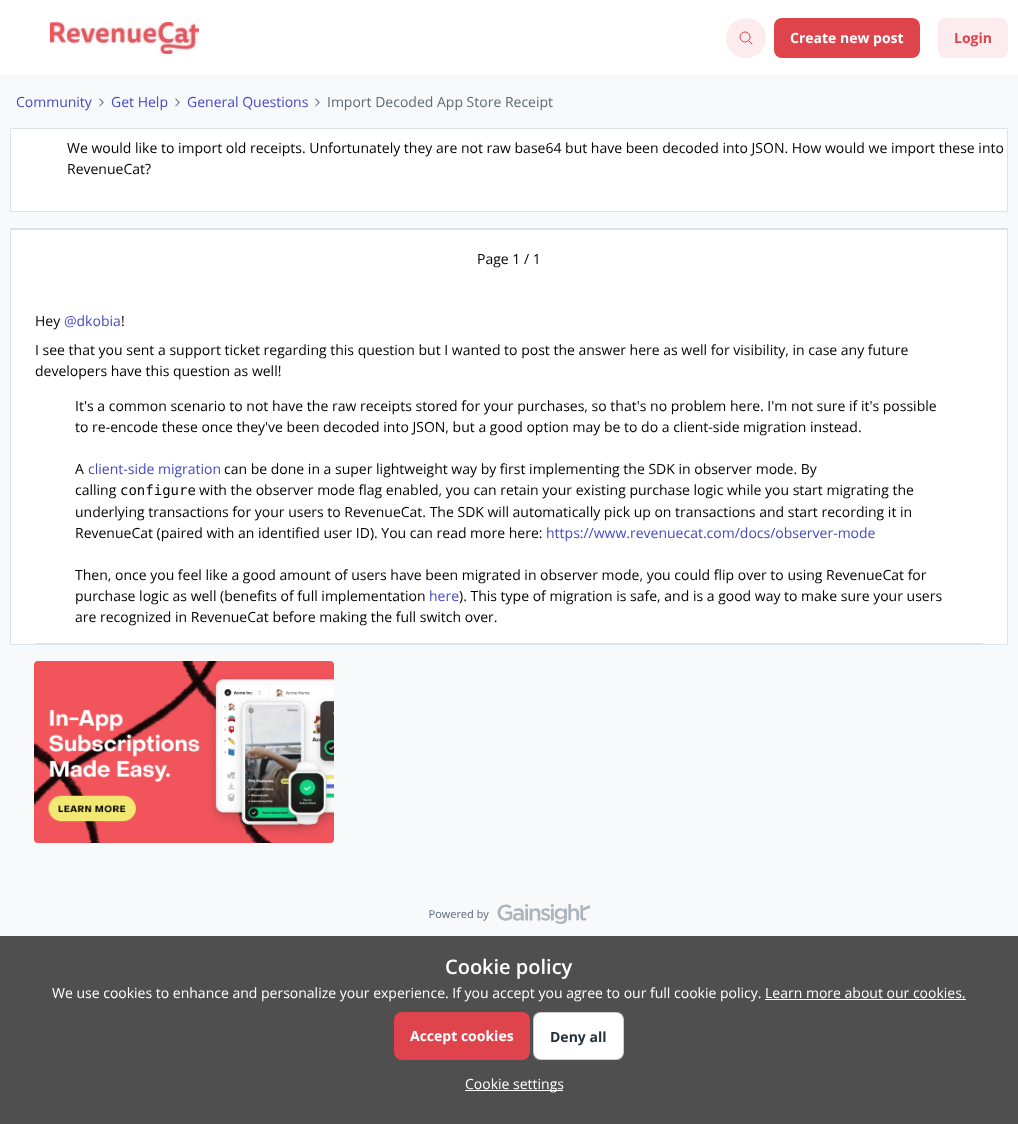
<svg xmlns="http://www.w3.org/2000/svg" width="1018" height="1124">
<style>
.a{font:bold 14px Open Sans;fill:#fff}
.b{font:bold 14px Open Sans;fill:#df434b}
.c{font:14px Open Sans;fill:#4449c3}
.d{font:14px Open Sans;fill:#616a71}
.e{font:14px Open Sans;fill:#000}
.f{font:14px DejaVu Sans Mono;fill:#000}
.g{font:600 20px Open Sans;fill:#fff}
.h{font:14px Open Sans;fill:#fff}
.i{font:bold 14px Open Sans;fill:#25313b}
</style>
<rect width="100%" height="100%" fill="#f8f9fa"/>
<path fill="#4f4f4f" d="M0 936h1018v188H0z"/>
<path fill="#fff" d="M0 0h1018v75H0z"/>
<image href="1.png" x="50" y="22" width="149" height="32"/>
<circle fill="#fceced" cx="746" cy="38" r="20"/>
<circle fill="none" stroke="#df434b" cx="745" cy="37" r="5"/>
<path fill="none" stroke="#df434b" stroke-linecap="round" d="M749 41l3 3"/>
<rect fill="#df434b" x="774" y="18" width="146" height="40" rx="8"/>
<rect fill="#fceced" x="938" y="18" width="70" height="40" rx="8"/>
<image href="2.png" x="99" y="98" width="5" height="9"/>
<image href="2.png" x="175" y="98" width="5" height="9"/>
<image href="2.png" x="315" y="98" width="5" height="9"/>
<path fill="#fff" stroke="#dbe3ea" d="M10.5 128.5h997v83H10.5z"/>
<path fill="#fff" d="M11 230h996v414H11z"/>
<path fill="none" stroke="#dbe3ea" d="M10.5 228.5h997v416H10.5z"/>
<path fill="#dbe3ea" d="M11 229h996v1H11z"/>
<path fill="#dbe3ea" d="M35 643h948v1H35z"/>
<image href="3.png" x="34" y="661" width="300" height="182"/>
<image href="4.png" x="429" y="904" width="161" height="20"/>
<path fill="#fff" d="M765 999h201v1H765z"/>
<rect fill="#df434b" x="394" y="1012" width="136" height="48" rx="8"/>
<rect fill="#fff" x="533" y="1012" width="91" height="48" rx="8"/>
<rect fill="none" stroke="#00000033" x="533.5" y="1012.5" width="90" height="47" rx="7.5"/>
<path fill="#fff" d="M465 1090h98v1H465z"/>
<text class="a" x="790" y="43">Create new post</text>
<text class="b" x="954" y="43">Login</text>
<text class="c" x="16" y="107">Community</text>
<text class="c" x="111" y="107">Get Help</text>
<text class="c" x="187" y="107">General Questions</text>
<text class="d" x="327" y="107">Import Decoded App Store Receipt</text>
<text class="e" x="67" y="153">We would like to import old receipts. Unfortunately they are not raw base64 but have been decoded into JSON. How would we import these into</text>
<text class="e" x="67" y="174">RevenueCat?</text>
<text class="e" x="477" y="264">Page 1 / 1</text>
<text class="e" x="35" y="326">Hey</text>
<text class="c" x="64" y="326">@dkobia</text>
<text class="e" x="121" y="326">!</text>
<text class="e" x="35" y="355">I see that you sent a support ticket regarding this question but I wanted to post the answer here as well for visibility, in case any future</text>
<text class="e" x="35" y="376">developers have this question as well!</text>
<text class="e" x="75" y="411">It's a common scenario to not have the raw receipts stored for your purchases, so that's no problem here. I'm not sure if it's possible</text>
<text class="e" x="75" y="432">to re-encode these once they've been decoded into JSON, but a good option may be to do a client-side migration instead.</text>
<text class="e" x="75" y="474">A</text>
<text class="c" x="88" y="474">client-side migration</text>
<text class="e" x="224" y="474">can be done in a super lightweight way by first implementing the SDK in observer mode. By</text>
<text class="e" x="75" y="495">calling</text>
<text class="f" x="120" y="495">configure</text>
<text class="e" x="199" y="495">with the observer mode flag enabled, you can retain your existing purchase logic while you start migrating the</text>
<text class="e" x="75" y="517">underlying transactions for your users to RevenueCat. The SDK will automatically pick up on transactions and start recording it in</text>
<text class="e" x="75" y="538">RevenueCat (paired with an identified user ID). You can read more here:</text>
<text class="c" x="546" y="538">https://www.revenuecat.com/docs/observer-mode</text>
<text class="e" x="75" y="580">Then, once you feel like a good amount of users have been migrated in observer mode, you could flip over to using RevenueCat for</text>
<text class="e" x="75" y="601">purchase logic as well (benefits of full implementation</text>
<text class="c" x="429" y="601">here</text>
<text class="e" x="459" y="601">). This type of migration is safe, and is a good way to make sure your users</text>
<text class="e" x="75" y="622">are recognized in RevenueCat before making the full switch over.</text>
<text class="g" x="445" y="974">Cookie policy</text>
<text class="h" x="52" y="998">We use cookies to enhance and personalize your experience. If you accept you agree to our full cookie policy. Learn more about our cookies.</text>
<text class="a" x="410" y="1041">Accept cookies</text>
<text class="i" x="550" y="1042">Deny all</text>
<text class="h" x="465" y="1089">Cookie settings</text>
</svg>
